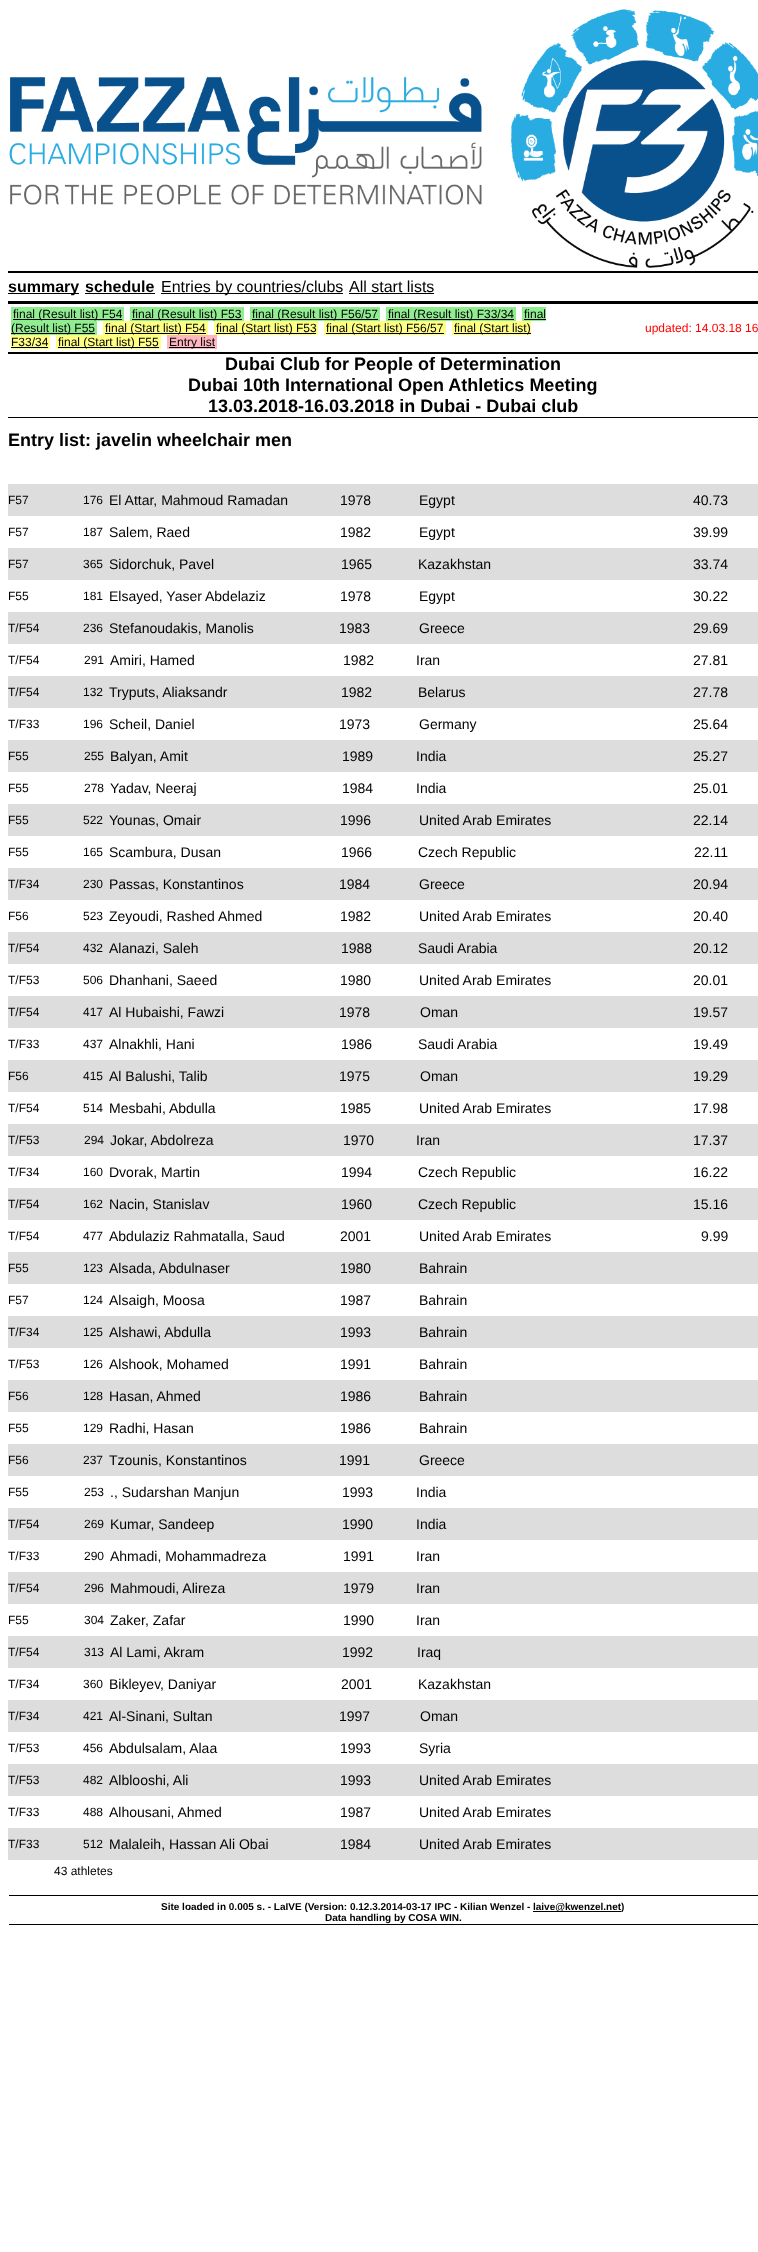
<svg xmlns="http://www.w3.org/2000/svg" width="758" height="2252">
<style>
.a{font:bold 16px Liberation Sans;fill:#000}
.b{font:16px Liberation Sans;fill:#000}
.c{font:12px Liberation Sans;fill:#000}
.d{font:12px Liberation Sans;fill:#f00}
.e{font:bold 18px Liberation Sans;fill:#000}
.f{font:14px Liberation Sans;fill:#000}
.g{font:bold 10px Liberation Sans;fill:#000}
</style>
<rect width="100%" height="100%" fill="#fff"/>
<image href="1.png" x="9" y="9" width="749" height="259"/>
<path fill="#000" d="M8 271h750v2H8z"/>
<path fill="#000" d="M8 301h750v3H8z"/>
<path fill="#000" d="M8 293h71v1H8z"/>
<path fill="#000" d="M85 293h70v1H85z"/>
<path fill="#000" d="M161 293h182v1H161z"/>
<path fill="#000" d="M349 293h85v1H349z"/>
<path fill="#000" d="M8 352h750v2H8z"/>
<path fill="#90ee90" d="M11 307h113v14H11z"/>
<path fill="#000" d="M13 319h109v1H13z"/>
<path fill="#90ee90" d="M130 307h114v14H130z"/>
<path fill="#000" d="M132 319h110v1H132z"/>
<path fill="#90ee90" d="M250 307h130v14H250z"/>
<path fill="#000" d="M252 319h126v1H252z"/>
<path fill="#90ee90" d="M386 307h130v14H386z"/>
<path fill="#000" d="M388 319h126v1H388z"/>
<path fill="#90ee90" d="M522 307h24v14H522z"/>
<path fill="#000" d="M524 319h22v1H524z"/>
<path fill="#90ee90" d="M11 321h86v14H11z"/>
<path fill="#000" d="M11 333h84v1H11z"/>
<path fill="#ffff83" d="M103 321h105v14H103z"/>
<path fill="#000" d="M105 333h101v1H105z"/>
<path fill="#ffff83" d="M214 321h104v14H214z"/>
<path fill="#000" d="M216 333h100v1H216z"/>
<path fill="#ffff83" d="M324 321h122v14H324z"/>
<path fill="#000" d="M326 333h118v1H326z"/>
<path fill="#ffff83" d="M452 321h79v14H452z"/>
<path fill="#000" d="M454 333h77v1H454z"/>
<path fill="#ffff83" d="M11 335h39v14H11z"/>
<path fill="#000" d="M11 347h37v1H11z"/>
<path fill="#ffff83" d="M56 335h105v14H56z"/>
<path fill="#000" d="M58 347h101v1H58z"/>
<path fill="#ffb6c1" d="M167 335h50v14H167z"/>
<path fill="#000" d="M169 347h46v1H169z"/>
<path fill="#000" d="M8 417h750v1H8z"/>
<path fill="#ddd" d="M8 484h750v32H8z"/>
<path fill="#ddd" d="M8 548h750v32H8z"/>
<path fill="#ddd" d="M8 612h750v32H8z"/>
<path fill="#ddd" d="M8 676h750v32H8z"/>
<path fill="#ddd" d="M8 740h750v32H8z"/>
<path fill="#ddd" d="M8 804h750v32H8z"/>
<path fill="#ddd" d="M8 868h750v32H8z"/>
<path fill="#ddd" d="M8 932h750v32H8z"/>
<path fill="#ddd" d="M8 996h750v32H8z"/>
<path fill="#ddd" d="M8 1060h750v32H8z"/>
<path fill="#ddd" d="M8 1124h750v32H8z"/>
<path fill="#ddd" d="M8 1188h750v32H8z"/>
<path fill="#ddd" d="M8 1252h750v32H8z"/>
<path fill="#ddd" d="M8 1316h750v32H8z"/>
<path fill="#ddd" d="M8 1380h750v32H8z"/>
<path fill="#ddd" d="M8 1444h750v32H8z"/>
<path fill="#ddd" d="M8 1508h750v32H8z"/>
<path fill="#ddd" d="M8 1572h750v32H8z"/>
<path fill="#ddd" d="M8 1636h750v32H8z"/>
<path fill="#ddd" d="M8 1700h750v32H8z"/>
<path fill="#ddd" d="M8 1764h750v32H8z"/>
<path fill="#ddd" d="M8 1828h750v32H8z"/>
<path fill="#000" d="M9 1895h749v1H9z"/>
<path fill="#000" d="M9 1924h749v1H9z"/>
<path fill="#000" d="M533 1911h88v1H533z"/>
<text class="a" x="8" y="292">summary</text>
<text class="a" x="85" y="292">schedule</text>
<text class="b" x="161" y="292">Entries by countries/clubs</text>
<text class="b" x="349" y="292">All start lists</text>
<text class="c" x="13" y="318">final (Result list) F54</text>
<text class="c" x="132" y="318">final (Result list) F53</text>
<text class="c" x="252" y="318">final (Result list) F56/57</text>
<text class="c" x="388" y="318">final (Result list) F33/34</text>
<text class="c" x="524" y="318">final</text>
<text class="c" x="11" y="332">(Result list) F55</text>
<text class="c" x="105" y="332">final (Start list) F54</text>
<text class="c" x="216" y="332">final (Start list) F53</text>
<text class="c" x="326" y="332">final (Start list) F56/57</text>
<text class="c" x="454" y="332">final (Start list)</text>
<text class="c" x="11" y="346">F33/34</text>
<text class="c" x="58" y="346">final (Start list) F55</text>
<text class="c" x="169" y="346">Entry list</text>
<text class="d" x="645" y="332">updated: 14.03.18 16</text>
<text class="e" x="225" y="370">Dubai Club for People of Determination</text>
<text class="e" x="188" y="391">Dubai 10th International Open Athletics Meeting</text>
<text class="e" x="208" y="412">13.03.2018-16.03.2018 in Dubai - Dubai club</text>
<text class="e" x="8" y="446">Entry list: javelin wheelchair men</text>
<text class="c" x="8" y="504">F57</text>
<text class="c" x="83" y="504">176</text>
<text class="f" x="109" y="505">El Attar, Mahmoud Ramadan</text>
<text class="f" x="340" y="505">1978</text>
<text class="f" x="419" y="505">Egypt</text>
<text class="f" x="693" y="505">40.73</text>
<text class="c" x="8" y="536">F57</text>
<text class="c" x="83" y="536">187</text>
<text class="f" x="109" y="537">Salem, Raed</text>
<text class="f" x="340" y="537">1982</text>
<text class="f" x="419" y="537">Egypt</text>
<text class="f" x="693" y="537">39.99</text>
<text class="c" x="8" y="568">F57</text>
<text class="c" x="83" y="568">365</text>
<text class="f" x="109" y="569">Sidorchuk, Pavel</text>
<text class="f" x="341" y="569">1965</text>
<text class="f" x="418" y="569">Kazakhstan</text>
<text class="f" x="693" y="569">33.74</text>
<text class="c" x="8" y="600">F55</text>
<text class="c" x="83" y="600">181</text>
<text class="f" x="109" y="601">Elsayed, Yaser Abdelaziz</text>
<text class="f" x="340" y="601">1978</text>
<text class="f" x="419" y="601">Egypt</text>
<text class="f" x="693" y="601">30.22</text>
<text class="c" x="8" y="632">T/F54</text>
<text class="c" x="83" y="632">236</text>
<text class="f" x="109" y="633">Stefanoudakis, Manolis</text>
<text class="f" x="339" y="633">1983</text>
<text class="f" x="419" y="633">Greece</text>
<text class="f" x="693" y="633">29.69</text>
<text class="c" x="8" y="664">T/F54</text>
<text class="c" x="84" y="664">291</text>
<text class="f" x="110" y="665">Amiri, Hamed</text>
<text class="f" x="343" y="665">1982</text>
<text class="f" x="416" y="665">Iran</text>
<text class="f" x="693" y="665">27.81</text>
<text class="c" x="8" y="696">T/F54</text>
<text class="c" x="83" y="696">132</text>
<text class="f" x="109" y="697">Tryputs, Aliaksandr</text>
<text class="f" x="341" y="697">1982</text>
<text class="f" x="418" y="697">Belarus</text>
<text class="f" x="693" y="697">27.78</text>
<text class="c" x="8" y="728">T/F33</text>
<text class="c" x="83" y="728">196</text>
<text class="f" x="109" y="729">Scheil, Daniel</text>
<text class="f" x="339" y="729">1973</text>
<text class="f" x="419" y="729">Germany</text>
<text class="f" x="693" y="729">25.64</text>
<text class="c" x="8" y="760">F55</text>
<text class="c" x="84" y="760">255</text>
<text class="f" x="110" y="761">Balyan, Amit</text>
<text class="f" x="342" y="761">1989</text>
<text class="f" x="416" y="761">India</text>
<text class="f" x="693" y="761">25.27</text>
<text class="c" x="8" y="792">F55</text>
<text class="c" x="84" y="792">278</text>
<text class="f" x="110" y="793">Yadav, Neeraj</text>
<text class="f" x="342" y="793">1984</text>
<text class="f" x="416" y="793">India</text>
<text class="f" x="693" y="793">25.01</text>
<text class="c" x="8" y="824">F55</text>
<text class="c" x="83" y="824">522</text>
<text class="f" x="109" y="825">Younas, Omair</text>
<text class="f" x="340" y="825">1996</text>
<text class="f" x="419" y="825">United Arab Emirates</text>
<text class="f" x="693" y="825">22.14</text>
<text class="c" x="8" y="856">F55</text>
<text class="c" x="83" y="856">165</text>
<text class="f" x="109" y="857">Scambura, Dusan</text>
<text class="f" x="341" y="857">1966</text>
<text class="f" x="418" y="857">Czech Republic</text>
<text class="f" x="694" y="857">22.11</text>
<text class="c" x="8" y="888">T/F34</text>
<text class="c" x="83" y="888">230</text>
<text class="f" x="109" y="889">Passas, Konstantinos</text>
<text class="f" x="339" y="889">1984</text>
<text class="f" x="419" y="889">Greece</text>
<text class="f" x="693" y="889">20.94</text>
<text class="c" x="8" y="920">F56</text>
<text class="c" x="83" y="920">523</text>
<text class="f" x="109" y="921">Zeyoudi, Rashed Ahmed</text>
<text class="f" x="340" y="921">1982</text>
<text class="f" x="419" y="921">United Arab Emirates</text>
<text class="f" x="693" y="921">20.40</text>
<text class="c" x="8" y="952">T/F54</text>
<text class="c" x="83" y="952">432</text>
<text class="f" x="109" y="953">Alanazi, Saleh</text>
<text class="f" x="341" y="953">1988</text>
<text class="f" x="418" y="953">Saudi Arabia</text>
<text class="f" x="693" y="953">20.12</text>
<text class="c" x="8" y="984">T/F53</text>
<text class="c" x="83" y="984">506</text>
<text class="f" x="109" y="985">Dhanhani, Saeed</text>
<text class="f" x="340" y="985">1980</text>
<text class="f" x="419" y="985">United Arab Emirates</text>
<text class="f" x="693" y="985">20.01</text>
<text class="c" x="8" y="1016">T/F54</text>
<text class="c" x="83" y="1016">417</text>
<text class="f" x="109" y="1017">Al Hubaishi, Fawzi</text>
<text class="f" x="339" y="1017">1978</text>
<text class="f" x="420" y="1017">Oman</text>
<text class="f" x="693" y="1017">19.57</text>
<text class="c" x="8" y="1048">T/F33</text>
<text class="c" x="83" y="1048">437</text>
<text class="f" x="109" y="1049">Alnakhli, Hani</text>
<text class="f" x="341" y="1049">1986</text>
<text class="f" x="418" y="1049">Saudi Arabia</text>
<text class="f" x="693" y="1049">19.49</text>
<text class="c" x="8" y="1080">F56</text>
<text class="c" x="83" y="1080">415</text>
<text class="f" x="109" y="1081">Al Balushi, Talib</text>
<text class="f" x="339" y="1081">1975</text>
<text class="f" x="420" y="1081">Oman</text>
<text class="f" x="693" y="1081">19.29</text>
<text class="c" x="8" y="1112">T/F54</text>
<text class="c" x="83" y="1112">514</text>
<text class="f" x="109" y="1113">Mesbahi, Abdulla</text>
<text class="f" x="340" y="1113">1985</text>
<text class="f" x="419" y="1113">United Arab Emirates</text>
<text class="f" x="693" y="1113">17.98</text>
<text class="c" x="8" y="1144">T/F53</text>
<text class="c" x="84" y="1144">294</text>
<text class="f" x="110" y="1145">Jokar, Abdolreza</text>
<text class="f" x="343" y="1145">1970</text>
<text class="f" x="416" y="1145">Iran</text>
<text class="f" x="693" y="1145">17.37</text>
<text class="c" x="8" y="1176">T/F34</text>
<text class="c" x="83" y="1176">160</text>
<text class="f" x="109" y="1177">Dvorak, Martin</text>
<text class="f" x="341" y="1177">1994</text>
<text class="f" x="418" y="1177">Czech Republic</text>
<text class="f" x="693" y="1177">16.22</text>
<text class="c" x="8" y="1208">T/F54</text>
<text class="c" x="83" y="1208">162</text>
<text class="f" x="109" y="1209">Nacin, Stanislav</text>
<text class="f" x="341" y="1209">1960</text>
<text class="f" x="418" y="1209">Czech Republic</text>
<text class="f" x="693" y="1209">15.16</text>
<text class="c" x="8" y="1240">T/F54</text>
<text class="c" x="83" y="1240">477</text>
<text class="f" x="109" y="1241">Abdulaziz Rahmatalla, Saud</text>
<text class="f" x="340" y="1241">2001</text>
<text class="f" x="419" y="1241">United Arab Emirates</text>
<text class="f" x="701" y="1241">9.99</text>
<text class="c" x="8" y="1272">F55</text>
<text class="c" x="83" y="1272">123</text>
<text class="f" x="109" y="1273">Alsada, Abdulnaser</text>
<text class="f" x="340" y="1273">1980</text>
<text class="f" x="419" y="1273">Bahrain</text>
<text class="c" x="8" y="1304">F57</text>
<text class="c" x="83" y="1304">124</text>
<text class="f" x="109" y="1305">Alsaigh, Moosa</text>
<text class="f" x="340" y="1305">1987</text>
<text class="f" x="419" y="1305">Bahrain</text>
<text class="c" x="8" y="1336">T/F34</text>
<text class="c" x="83" y="1336">125</text>
<text class="f" x="109" y="1337">Alshawi, Abdulla</text>
<text class="f" x="340" y="1337">1993</text>
<text class="f" x="419" y="1337">Bahrain</text>
<text class="c" x="8" y="1368">T/F53</text>
<text class="c" x="83" y="1368">126</text>
<text class="f" x="109" y="1369">Alshook, Mohamed</text>
<text class="f" x="340" y="1369">1991</text>
<text class="f" x="419" y="1369">Bahrain</text>
<text class="c" x="8" y="1400">F56</text>
<text class="c" x="83" y="1400">128</text>
<text class="f" x="109" y="1401">Hasan, Ahmed</text>
<text class="f" x="340" y="1401">1986</text>
<text class="f" x="419" y="1401">Bahrain</text>
<text class="c" x="8" y="1432">F55</text>
<text class="c" x="83" y="1432">129</text>
<text class="f" x="109" y="1433">Radhi, Hasan</text>
<text class="f" x="340" y="1433">1986</text>
<text class="f" x="419" y="1433">Bahrain</text>
<text class="c" x="8" y="1464">F56</text>
<text class="c" x="83" y="1464">237</text>
<text class="f" x="109" y="1465">Tzounis, Konstantinos</text>
<text class="f" x="339" y="1465">1991</text>
<text class="f" x="419" y="1465">Greece</text>
<text class="c" x="8" y="1496">F55</text>
<text class="c" x="84" y="1496">253</text>
<text class="f" x="110" y="1497">., Sudarshan Manjun</text>
<text class="f" x="342" y="1497">1993</text>
<text class="f" x="416" y="1497">India</text>
<text class="c" x="8" y="1528">T/F54</text>
<text class="c" x="84" y="1528">269</text>
<text class="f" x="110" y="1529">Kumar, Sandeep</text>
<text class="f" x="342" y="1529">1990</text>
<text class="f" x="416" y="1529">India</text>
<text class="c" x="8" y="1560">T/F33</text>
<text class="c" x="84" y="1560">290</text>
<text class="f" x="110" y="1561">Ahmadi, Mohammadreza</text>
<text class="f" x="343" y="1561">1991</text>
<text class="f" x="416" y="1561">Iran</text>
<text class="c" x="8" y="1592">T/F54</text>
<text class="c" x="84" y="1592">296</text>
<text class="f" x="110" y="1593">Mahmoudi, Alireza</text>
<text class="f" x="343" y="1593">1979</text>
<text class="f" x="416" y="1593">Iran</text>
<text class="c" x="8" y="1624">F55</text>
<text class="c" x="84" y="1624">304</text>
<text class="f" x="110" y="1625">Zaker, Zafar</text>
<text class="f" x="343" y="1625">1990</text>
<text class="f" x="416" y="1625">Iran</text>
<text class="c" x="8" y="1656">T/F54</text>
<text class="c" x="84" y="1656">313</text>
<text class="f" x="110" y="1657">Al Lami, Akram</text>
<text class="f" x="342" y="1657">1992</text>
<text class="f" x="417" y="1657">Iraq</text>
<text class="c" x="8" y="1688">T/F34</text>
<text class="c" x="83" y="1688">360</text>
<text class="f" x="109" y="1689">Bikleyev, Daniyar</text>
<text class="f" x="341" y="1689">2001</text>
<text class="f" x="418" y="1689">Kazakhstan</text>
<text class="c" x="8" y="1720">T/F34</text>
<text class="c" x="83" y="1720">421</text>
<text class="f" x="109" y="1721">Al-Sinani, Sultan</text>
<text class="f" x="339" y="1721">1997</text>
<text class="f" x="420" y="1721">Oman</text>
<text class="c" x="8" y="1752">T/F53</text>
<text class="c" x="83" y="1752">456</text>
<text class="f" x="109" y="1753">Abdulsalam, Alaa</text>
<text class="f" x="340" y="1753">1993</text>
<text class="f" x="419" y="1753">Syria</text>
<text class="c" x="8" y="1784">T/F53</text>
<text class="c" x="83" y="1784">482</text>
<text class="f" x="109" y="1785">Alblooshi, Ali</text>
<text class="f" x="340" y="1785">1993</text>
<text class="f" x="419" y="1785">United Arab Emirates</text>
<text class="c" x="8" y="1816">T/F33</text>
<text class="c" x="83" y="1816">488</text>
<text class="f" x="109" y="1817">Alhousani, Ahmed</text>
<text class="f" x="340" y="1817">1987</text>
<text class="f" x="419" y="1817">United Arab Emirates</text>
<text class="c" x="8" y="1848">T/F33</text>
<text class="c" x="83" y="1848">512</text>
<text class="f" x="109" y="1849">Malaleih, Hassan Ali Obai</text>
<text class="f" x="340" y="1849">1984</text>
<text class="f" x="419" y="1849">United Arab Emirates</text>
<text class="c" x="54" y="1875">43 athletes</text>
<text class="g" x="161" y="1910">Site loaded in 0.005 s. - LaIVE (Version: 0.12.3.2014-03-17 IPC - Kilian Wenzel -</text>
<text class="g" x="533" y="1910">laive@kwenzel.net)</text>
<text class="g" x="325" y="1921">Data handling by COSA WIN.</text>
</svg>
